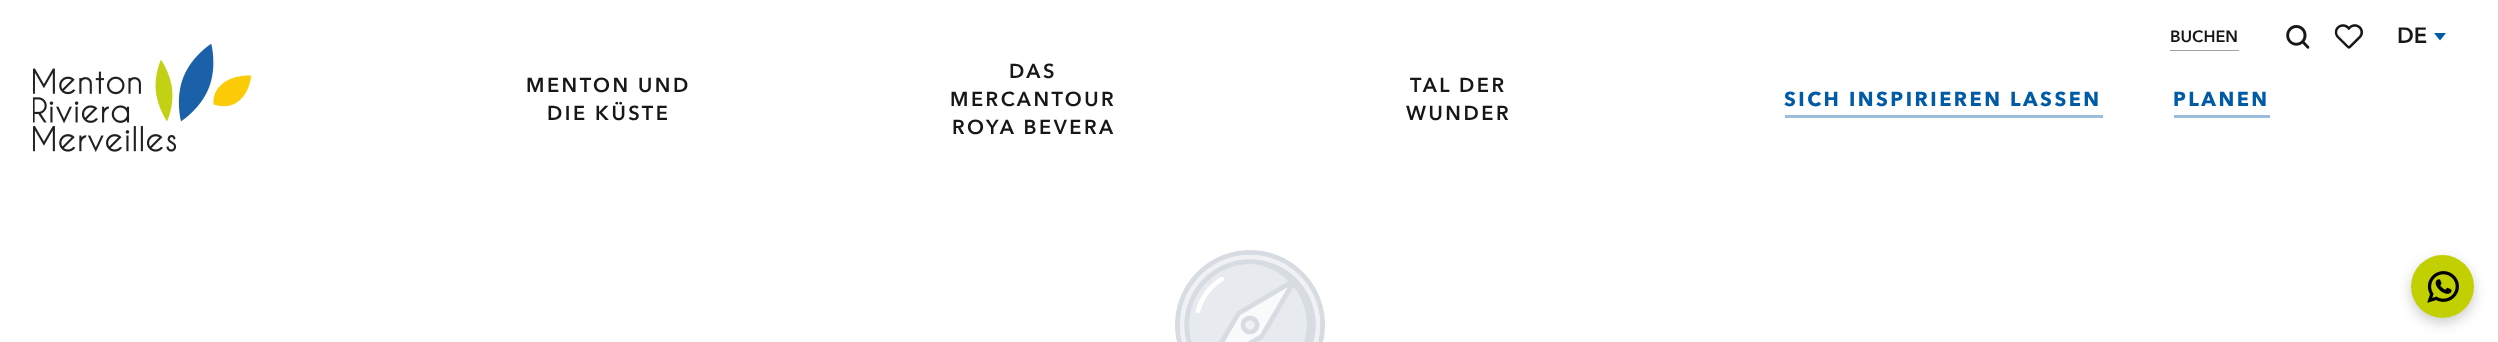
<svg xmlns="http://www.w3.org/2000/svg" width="2498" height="342">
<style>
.a{font:600 16.25px Avenir Next;fill:#171717}
.b{font:600 22px Avenir Next;fill:#171717}
.c{font:600 20px Avenir Next;letter-spacing:2.5px;fill:#171717}
.d{font:bold 20px Avenir Next;letter-spacing:2.5px;fill:#005ba6}
</style>
<rect width="100%" height="100%" fill="#fff"/>
<path fill="#a2a2a2" d="M2170 50h69v1H2170z"/>
<image href="1.png" x="2286" y="25" width="24" height="24"/>
<image href="2.png" x="2334" y="24" width="30" height="25"/>
<path fill="#005ba6" d="M2434 33h12l-6 7.5z"/>
<image href="3.png" x="33" y="44" width="218" height="108"/>
<path fill="#99bddb" d="M1785 115h318v3H1785z"/>
<path fill="#99bddb" d="M2174 115h96v3H2174z"/>
<image href="4.png" x="1175" y="250" width="150" height="92"/>
<rect fill="#00000033" filter="blur(6.5px)" x="2411" y="260" width="63" height="63" rx="31.5"/>
<circle fill="#c2cf00" cx="2442.5" cy="286.5" r="31.5"/>
<image href="5.png" x="2427" y="271" width="32" height="32"/>
<text class="a" x="2170" y="42">BUCHEN</text>
<text class="b" x="2397" y="43">DE</text>
<text class="c" x="526" y="92">MENTON UND</text>
<text class="c" x="547" y="120">DIE KÜSTE</text>
<text class="c" x="1009" y="78">DAS</text>
<text class="c" x="950" y="106">MERCANTOUR</text>
<text class="c" x="952" y="134">ROYA BEVERA</text>
<text class="c" x="1410" y="92">TAL DER</text>
<text class="c" x="1406" y="120">WUNDER</text>
<text class="d" x="1784" y="106">SICH INSPIRIEREN LASSEN</text>
<text class="d" x="2173" y="106">PLANEN</text>
</svg>
